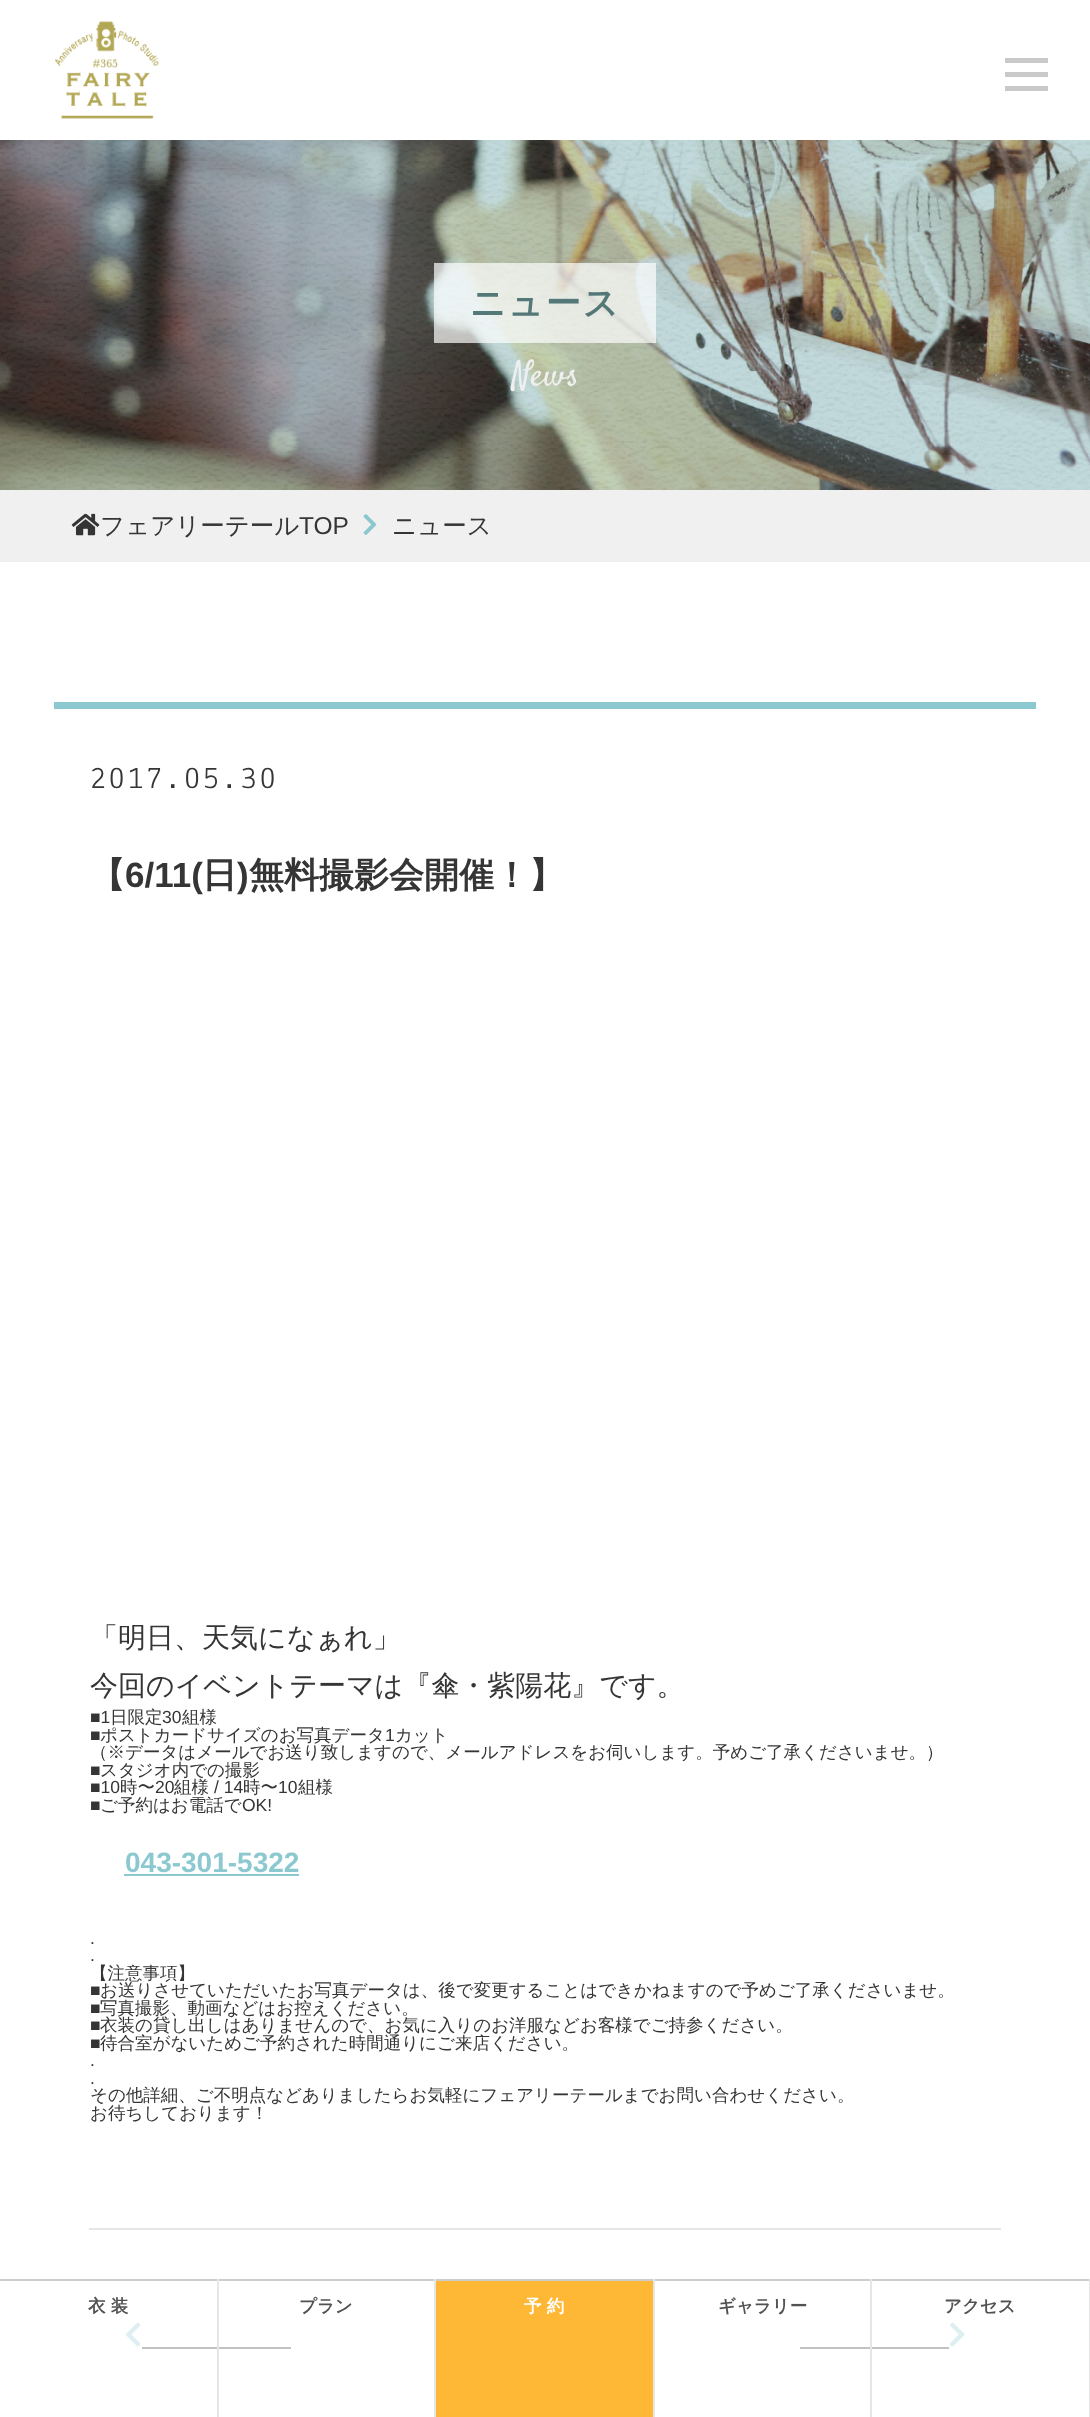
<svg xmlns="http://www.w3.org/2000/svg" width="1090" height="2417">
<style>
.a{font:bold 35px WenQuanYi Zen Hei;letter-spacing:2px;fill:#547778}
.b{font:35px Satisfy;fill:#efefef}
.c{font:500 24.5px WenQuanYi Zen Hei;fill:#353535}
.d{font:24.5px Liberation Sans;fill:#353535}
.e{font:31.5px Lekton;letter-spacing:3.1px;fill:#353535}
.f{font:bold 35px WenQuanYi Zen Hei;fill:#353535}
.g{font:bold 35px Liberation Sans;fill:#353535}
.h{font:500 28px WenQuanYi Zen Hei;fill:#353535}
.i{font:17.5px Liberation Sans;fill:#353535}
.j{font:500 17.5px WenQuanYi Zen Hei;fill:#353535}
.k{font:bold 28px Liberation Sans;fill:#8cc8d0}
.l{font:bold 17.5px WenQuanYi Zen Hei;fill:#525252}
.m{font:bold 17.5px WenQuanYi Zen Hei;fill:#fff}
</style>
<rect width="100%" height="100%" fill="#fff"/>
<image href="1.png" x="55" y="21" width="104" height="98"/>
<path fill="#c9c9c9" d="M1005 72h43v5H1005z"/>
<path fill="#c9c9c9" d="M1005 58h43v5H1005z"/>
<path fill="#c9c9c9" d="M1005 86h43v5H1005z"/>
<image href="2.png" x="0" y="140" width="1090" height="350"/>
<path fill="#ffffffb0" d="M434 263h222v80H434z"/>
<path fill="#f0f0f0" d="M0 490h1090v72H0z"/>
<image href="3.png" x="71" y="513" width="29" height="23"/>
<image href="4.png" x="363" y="514" width="14" height="21"/>
<path fill="#8cc8d0" d="M54 702h982v7H54z"/>
<path fill="#8cc8d0" d="M124 1874h175v2H124z"/>
<path fill="#e6e6e6" d="M89 2228h912v2H89z"/>
<image href="5.png" x="125" y="2322" width="16" height="25"/>
<path fill="#353535" d="M142 2347h149v2H142z"/>
<image href="6.png" x="950" y="2322" width="15" height="25"/>
<path fill="#353535" d="M800 2347h149v2H800z"/>
<path fill="#ffffffb3" d="M125 2322h92v27H125z"/>
<path fill="#cdcdcd" d="M0 2279h1090v2H0z"/>
<path fill="#e6e6e6" d="M217 2279h2v138H217z"/>
<path fill="#ffffffb3" d="M219 2347h72v2H219z"/>
<path fill="#e6e6e6" d="M434 2279h2v138H434z"/>
<path fill="#ffb835" d="M436 2281h217v136H436z"/>
<path fill="#e6e6e6" d="M653 2279h2v138H653z"/>
<path fill="#ffffffb3" d="M800 2347h70v2H800z"/>
<path fill="#e6e6e6" d="M870 2279h2v138H870z"/>
<path fill="#ffffffb3" d="M872 2322h93v27H872z"/>
<path fill="#e6e6e6" d="M1089 2279h1v138H1089z"/>
<text class="a" x="470" y="315">ニュース</text>
<text class="b" x="512" y="385">News</text>
<text class="c" x="100" y="534">フェアリーテール</text>
<text class="d" x="299" y="534">TOP</text>
<text class="c" x="392" y="534">ニュース</text>
<text class="e" x="90" y="788">2017.05.30</text>
<text class="f" x="90" y="887">【</text>
<text class="g" x="125" y="887">6/11(</text>
<text class="f" x="202" y="887">日</text>
<text class="g" x="237" y="887">)</text>
<text class="f" x="249" y="887">無料撮影会開催！】</text>
<text class="h" x="90" y="1647">「明日、天気になぁれ」</text>
<text class="h" x="90" y="1695">今回のイベントテーマは『傘・紫陽花』です。</text>
<text class="i" x="90" y="1723">■1</text>
<text class="j" x="110" y="1723">日限定</text>
<text class="i" x="162" y="1723">30</text>
<text class="j" x="182" y="1723">組様</text>
<text class="i" x="90" y="1741">■</text>
<text class="j" x="100" y="1741">ポストカードサイズのお写真データ</text>
<text class="i" x="385" y="1741">1</text>
<text class="j" x="395" y="1741">カット</text>
<text class="j" x="90" y="1758">（※データはメールでお送り致しますので、メールアドレスをお伺いします。予めご了承くださいませ。）</text>
<text class="i" x="90" y="1776">■</text>
<text class="j" x="100" y="1776">スタジオ内での撮影</text>
<text class="i" x="90" y="1793">■10</text>
<text class="j" x="120" y="1793">時〜</text>
<text class="i" x="155" y="1793">20</text>
<text class="j" x="174" y="1793">組様</text>
<text class="i" x="214" y="1793">/ 14</text>
<text class="j" x="243" y="1793">時〜</text>
<text class="i" x="278" y="1793">10</text>
<text class="j" x="298" y="1793">組様</text>
<text class="i" x="90" y="1811">■</text>
<text class="j" x="100" y="1811">ご予約はお電話で</text>
<text class="i" x="242" y="1811">OK!</text>
<text class="k" x="125" y="1872">043-301-5322</text>
<text class="i" x="90" y="1944">.</text>
<text class="i" x="90" y="1961">.</text>
<text class="j" x="90" y="1979">【注意事項】</text>
<text class="i" x="90" y="1996">■</text>
<text class="j" x="100" y="1996">お送りさせていただいたお写真データは、後で変更することはできかねますので予めご了承くださいませ。</text>
<text class="i" x="90" y="2014">■</text>
<text class="j" x="100" y="2014">写真撮影、動画などはお控えください。</text>
<text class="i" x="90" y="2031">■</text>
<text class="j" x="100" y="2031">衣装の貸し出しはありませんので、お気に入りのお洋服などお客様でご持参ください。</text>
<text class="i" x="90" y="2049">■</text>
<text class="j" x="100" y="2049">待合室がないためご予約された時間通りにご来店ください。</text>
<text class="i" x="90" y="2066">.</text>
<text class="i" x="90" y="2084">.</text>
<text class="j" x="90" y="2101">その他詳細、ご不明点などありましたらお気軽にフェアリーテールまでお問い合わせください。</text>
<text class="j" x="90" y="2119">お待ちしております！</text>
<text class="l" x="88" y="2312">衣 装</text>
<text class="l" x="299" y="2312">プラン</text>
<text class="m" x="524" y="2312">予 約</text>
<text class="l" x="718" y="2312">ギャラリー</text>
<text class="l" x="944" y="2312">アクセス</text>
</svg>
